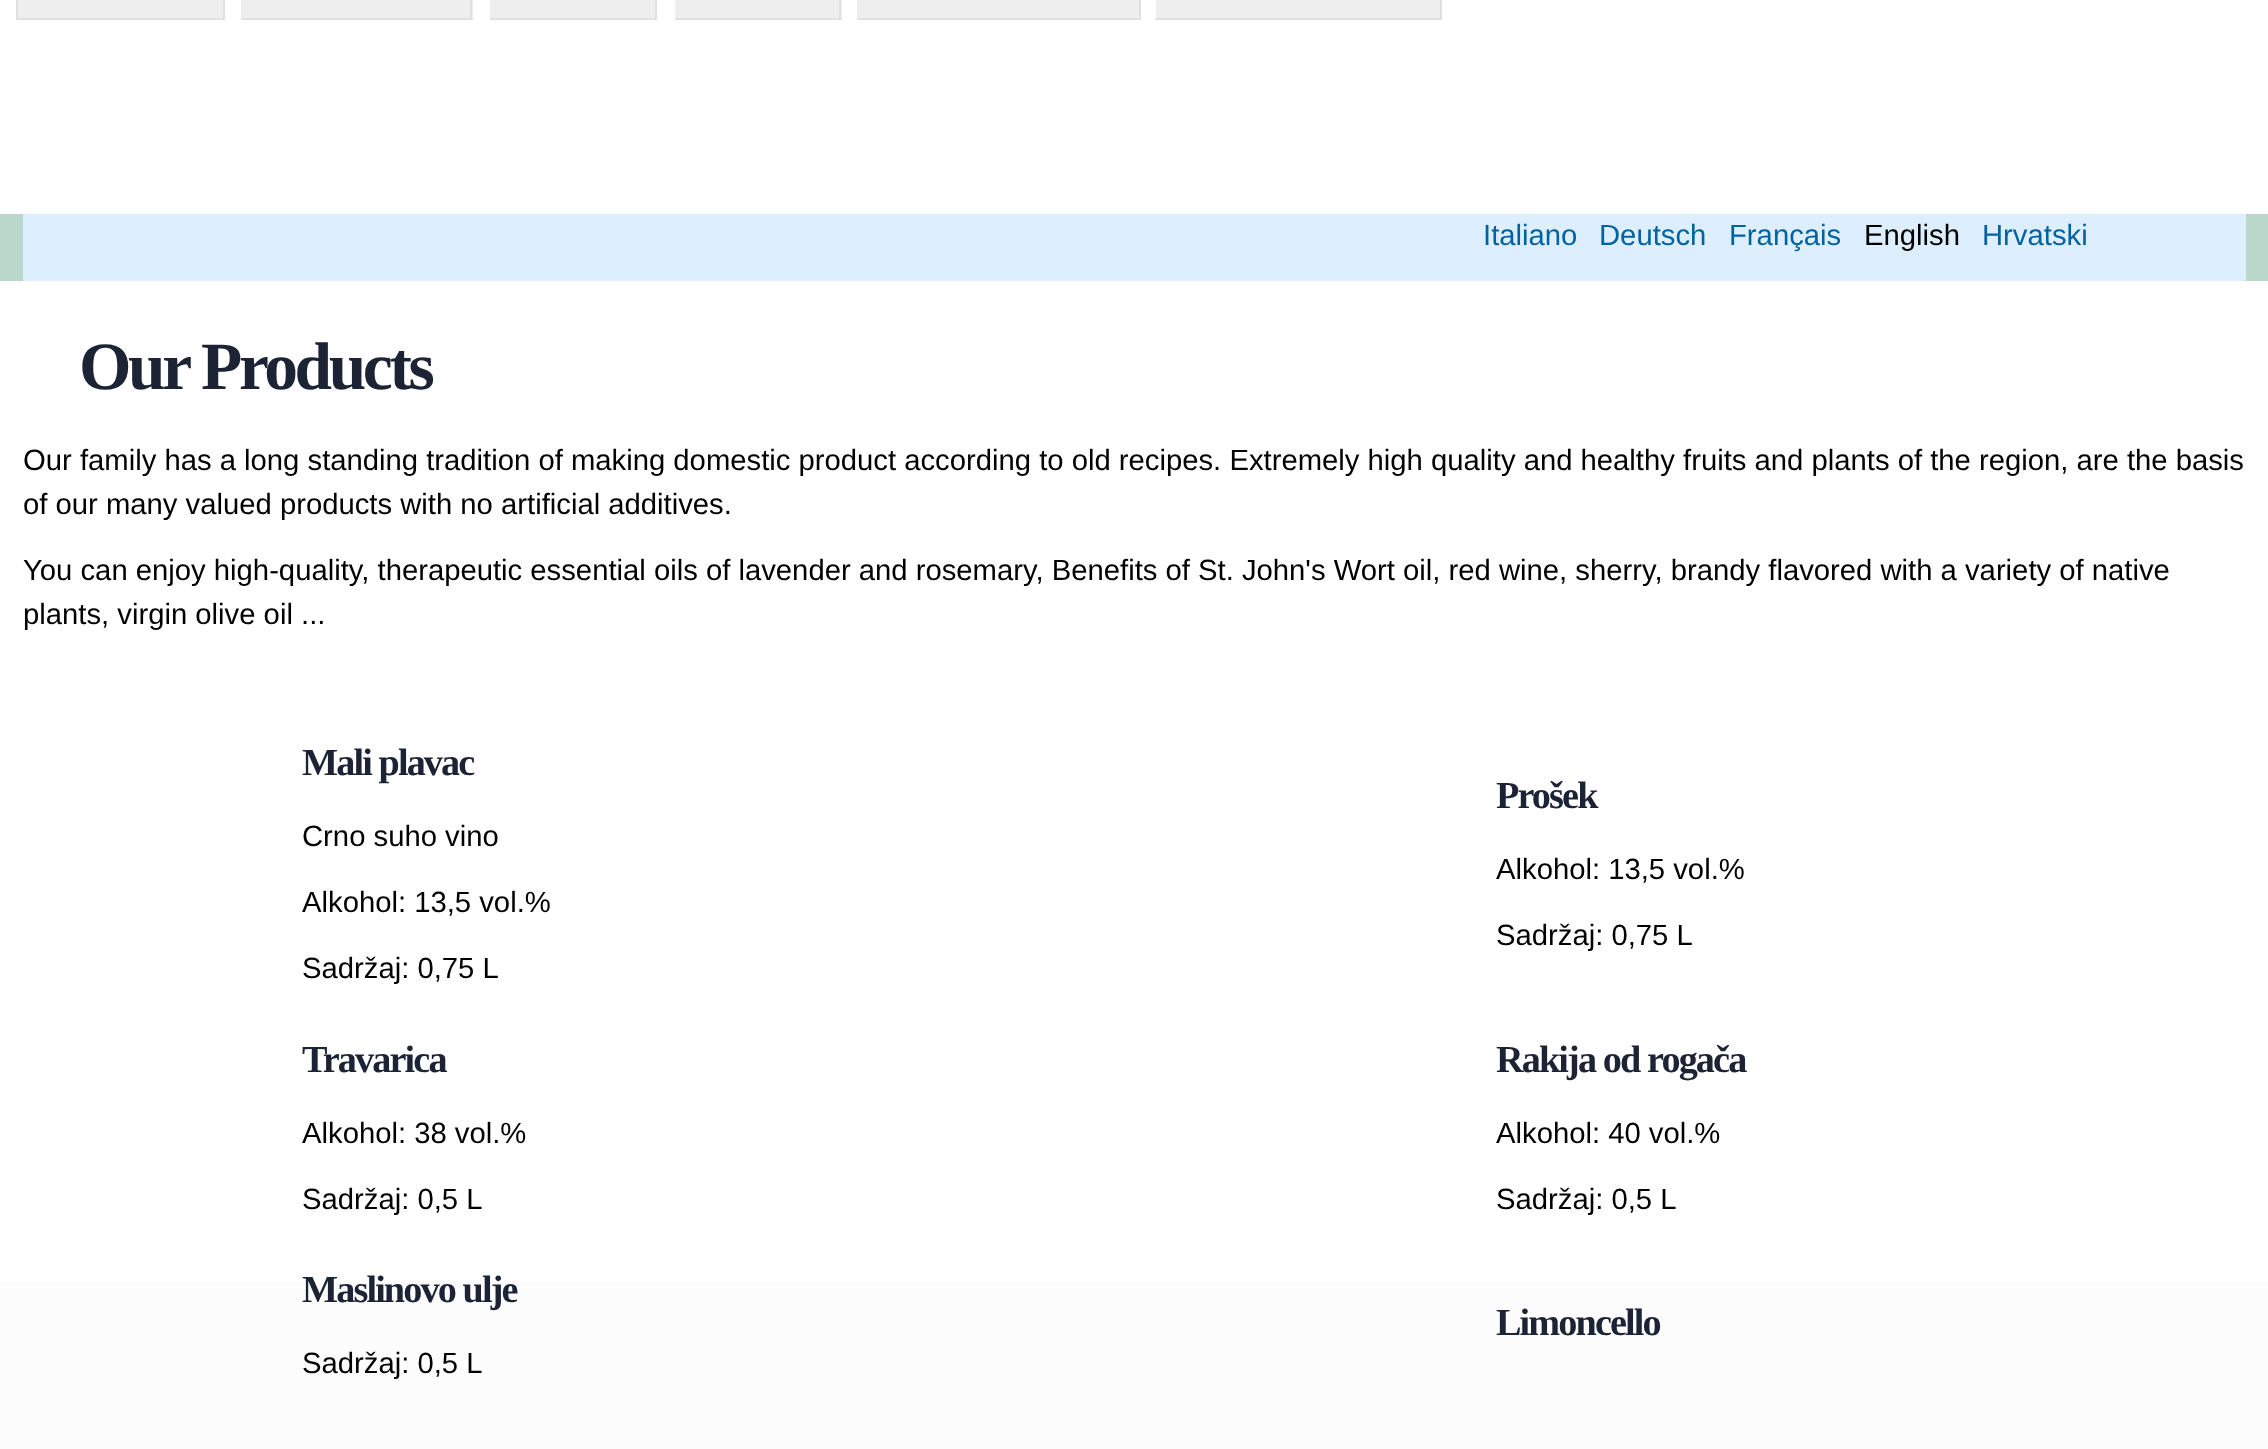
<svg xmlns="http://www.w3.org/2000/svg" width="2268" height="1449">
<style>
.a{font:29.25px Liberation Sans;fill:#0062a0}
.b{font:29.25px Liberation Sans;fill:#000}
.c{font:bold 67.5px Liberation Serif;letter-spacing:-3.4px;fill:#1b2335}
.d{font:bold 38.25px Liberation Serif;letter-spacing:-1.9px;fill:#1b2335}
</style>
<defs>
<linearGradient id="g1" gradientUnits="userSpaceOnUse" x1="1134" y1="315" x2="1134" y2="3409"><stop offset="0" stop-color="#fff"/><stop offset="1" stop-color="#f7f7f7"/></linearGradient>
</defs>
<rect width="100%" height="100%" fill="#fff"/>
<path fill="#eee" stroke="#e0e0e0" stroke-width="2" d="M17 -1h207v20H17z"/>
<path fill="#eee" d="M241 0h232v18H241z"/>
<path fill="#e0e0e0" d="M470 0h2v20H470z"/>
<path fill="#e0e0e0" d="M239 18h234v2H239z"/>
<path fill="#fff" d="M239 18h2v2H239z"/>
<path fill="#eee" d="M490 0h165v18H490z"/>
<path fill="#e0e0e0" d="M655 0h2v20H655z"/>
<path fill="#e0e0e0" d="M488 18h169v2H488z"/>
<path fill="#fff" d="M488 18h2v2H488z"/>
<path fill="#eee" d="M675 0h167v18H675z"/>
<path fill="#e0e0e0" d="M839 0h2v20H839z"/>
<path fill="#e0e0e0" d="M673 18h169v2H673z"/>
<path fill="#fff" d="M673 18h2v2H673z"/>
<path fill="#eee" d="M857 0h282v18H857z"/>
<path fill="#e0e0e0" d="M1139 0h2v20H1139z"/>
<path fill="#e0e0e0" d="M855 18h286v2H855z"/>
<path fill="#fff" d="M855 18h2v2H855z"/>
<path fill="#eee" d="M1154 0h288v20H1154z"/>
<path fill="#e0e0e0" d="M1442 20v-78c0-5-2-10-5-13l-2 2c3 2 5 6 5 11v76z"/>
<path fill="#e0e0e0" d="M1442 20l-2-2h-284l-2 2z"/>
<path fill="#fff" d="M1156-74v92l-2 2v-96l3 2z"/>
<path fill="#bad7cc" d="M0 214h2268v67H0z"/>
<path fill="#ddefff" d="M23 214h2223v67H23z"/>
<path fill="url(#g1)" d="M0 1282h2268v167H0z"/>
<text class="a" x="1483" y="245">Italiano</text>
<text class="a" x="1599" y="245">Deutsch</text>
<text class="a" x="1729" y="245">Français</text>
<text class="b" x="1864" y="245">English</text>
<text class="a" x="1982" y="245">Hrvatski</text>
<text class="c" x="79" y="389">Our Products</text>
<text class="b" x="23" y="470">Our family has a long standing tradition of making domestic product according to old recipes. Extremely high quality and healthy fruits and plants of the region, are the basis</text>
<text class="b" x="23" y="514">of our many valued products with no artificial additives.</text>
<text class="b" x="23" y="580">You can enjoy high-quality, therapeutic essential oils of lavender and rosemary, Benefits of St. John's Wort oil, red wine, sherry, brandy flavored with a variety of native</text>
<text class="b" x="23" y="624">plants, virgin olive oil ...</text>
<text class="d" x="302" y="775">Mali plavac</text>
<text class="b" x="302" y="846">Crno suho vino</text>
<text class="b" x="302" y="912">Alkohol: 13,5 vol.%</text>
<text class="b" x="302" y="978">Sadržaj: 0,75 L</text>
<text class="d" x="1496" y="808">Prošek</text>
<text class="b" x="1496" y="879">Alkohol: 13,5 vol.%</text>
<text class="b" x="1496" y="945">Sadržaj: 0,75 L</text>
<text class="d" x="302" y="1072">Travarica</text>
<text class="b" x="302" y="1143">Alkohol: 38 vol.%</text>
<text class="b" x="302" y="1209">Sadržaj: 0,5 L</text>
<text class="d" x="1496" y="1072">Rakija od rogača</text>
<text class="b" x="1496" y="1143">Alkohol: 40 vol.%</text>
<text class="b" x="1496" y="1209">Sadržaj: 0,5 L</text>
<text class="d" x="302" y="1302">Maslinovo ulje</text>
<text class="b" x="302" y="1373">Sadržaj: 0,5 L</text>
<text class="d" x="1496" y="1335">Limoncello</text>
</svg>
